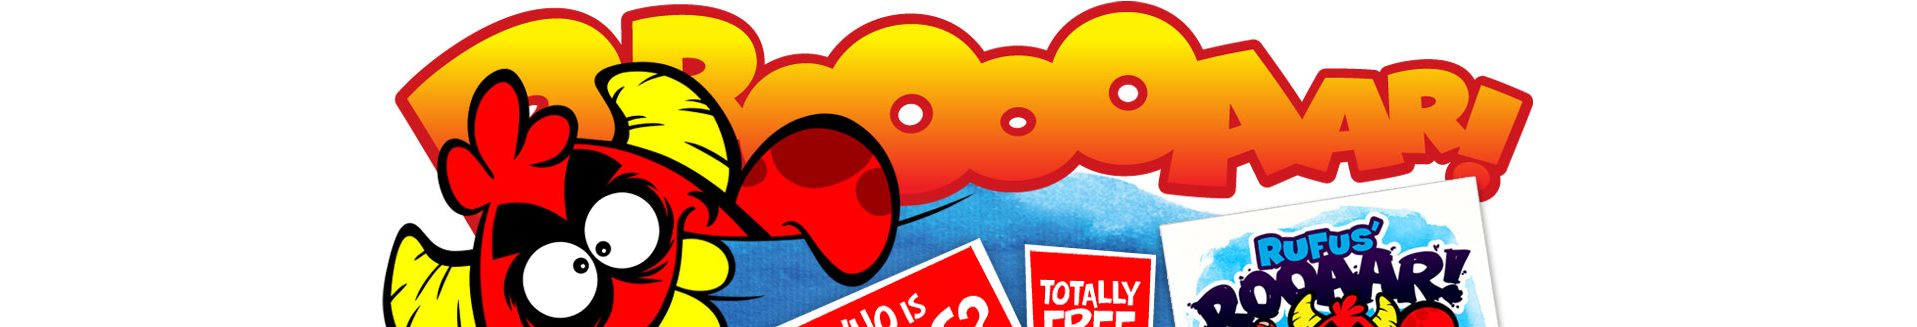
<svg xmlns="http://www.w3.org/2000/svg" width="1917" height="327">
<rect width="100%" height="100%" fill="#fff"/>
<image href="1.png" x="382" y="0" width="1152" height="327"/>
<image href="3.png" x="520" y="241" width="79" height="78"/>
<image href="2.png" x="583" y="191" width="79" height="79"/>
<image href="4.png" x="797" y="246" width="216" height="81"/>
<image href="5.png" x="1029" y="250" width="122" height="77"/>
</svg>
